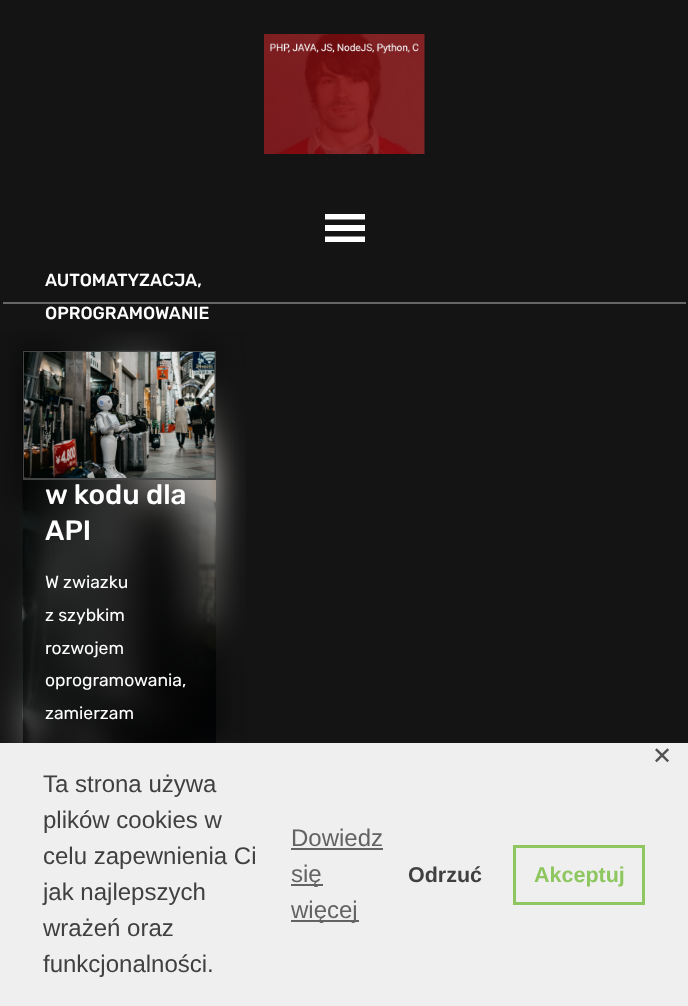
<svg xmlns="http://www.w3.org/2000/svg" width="688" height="1006">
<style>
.a{font:500 17.5px Rubik;fill:#fff}
.b{font:500 28px Rubik;fill:#fff}
.c{font:17.5px Rubik;fill:#fff}
.d{font:24px DejaVu Sans;fill:#525252}
.e{font:24px Liberation Sans;fill:#404040}
.f{font:24px Liberation Sans;fill:#636363}
.g{font:bold 21.5px Liberation Sans;fill:#404040}
.h{font:bold 21.5px Liberation Sans;fill:#8ec760}
</style>
<defs>
<linearGradient id="g1" gradientUnits="userSpaceOnUse" x1="119" y1="351" x2="119" y2="981"><stop offset="0" stop-color="#000" stop-opacity="0"/><stop offset="1" stop-color="#000" stop-opacity="0.95"/></linearGradient>
</defs>
<rect width="100%" height="100%" fill="#141414"/>
<path fill="#666" d="M3 302h683v2H3z"/>
<image href="1.png" x="264" y="34" width="161" height="120"/>
<path fill="#fff" d="M325 242h40v-5.5h-40zm0-28v5.5h40v-5.5zm0 17h40v-6h-40z"/>
<image href="2.png" x="22" y="350" width="194" height="393"/>
<image href="3.png" x="0" y="331" width="246" height="412"/>
<path fill="url(#g1)" d="M23 480h193v263H23z"/>
<path fill="none" stroke="#444" stroke-width="2" d="M24 352h191v127H24z"/>
<image href="4.png" x="24" y="352" width="191" height="126"/>
<path fill="#efefef" d="M0 743h688v263H0z"/>
<path fill="#636363" d="M291 848h92v2H291z"/>
<path fill="#636363" d="M291 884h32v2H291z"/>
<path fill="#636363" d="M291 920h68v2H291z"/>
<path fill="none" stroke="#8ec760" stroke-width="3" d="M514.5 846.5h129v57H514.5z"/>
<text class="a" x="45" y="286">AUTOMATYZACJA,</text>
<text class="a" x="45" y="319">OPROGRAMOWANIE</text>
<text class="b" x="45" y="504">w kodu dla</text>
<text class="b" x="45" y="540">API</text>
<text class="c" x="45" y="588">W zwiazku</text>
<text class="c" x="45" y="621">z szybkim</text>
<text class="c" x="45" y="654">rozwojem</text>
<text class="c" x="45" y="686">oprogramowania,</text>
<text class="c" x="45" y="719">zamierzam</text>
<text class="d" x="652" y="764">✕</text>
<text class="e" x="43" y="792">Ta strona używa</text>
<text class="e" x="43" y="828">plików cookies w</text>
<text class="e" x="43" y="864">celu zapewnienia Ci</text>
<text class="e" x="43" y="900">jak najlepszych</text>
<text class="e" x="43" y="936">wrażeń oraz</text>
<text class="e" x="43" y="972">funkcjonalności.</text>
<text class="f" x="291" y="846">Dowiedz</text>
<text class="f" x="291" y="882">się</text>
<text class="f" x="291" y="918">więcej</text>
<text class="g" x="408" y="882">Odrzuć</text>
<text class="h" x="534" y="882">Akceptuj</text>
</svg>
